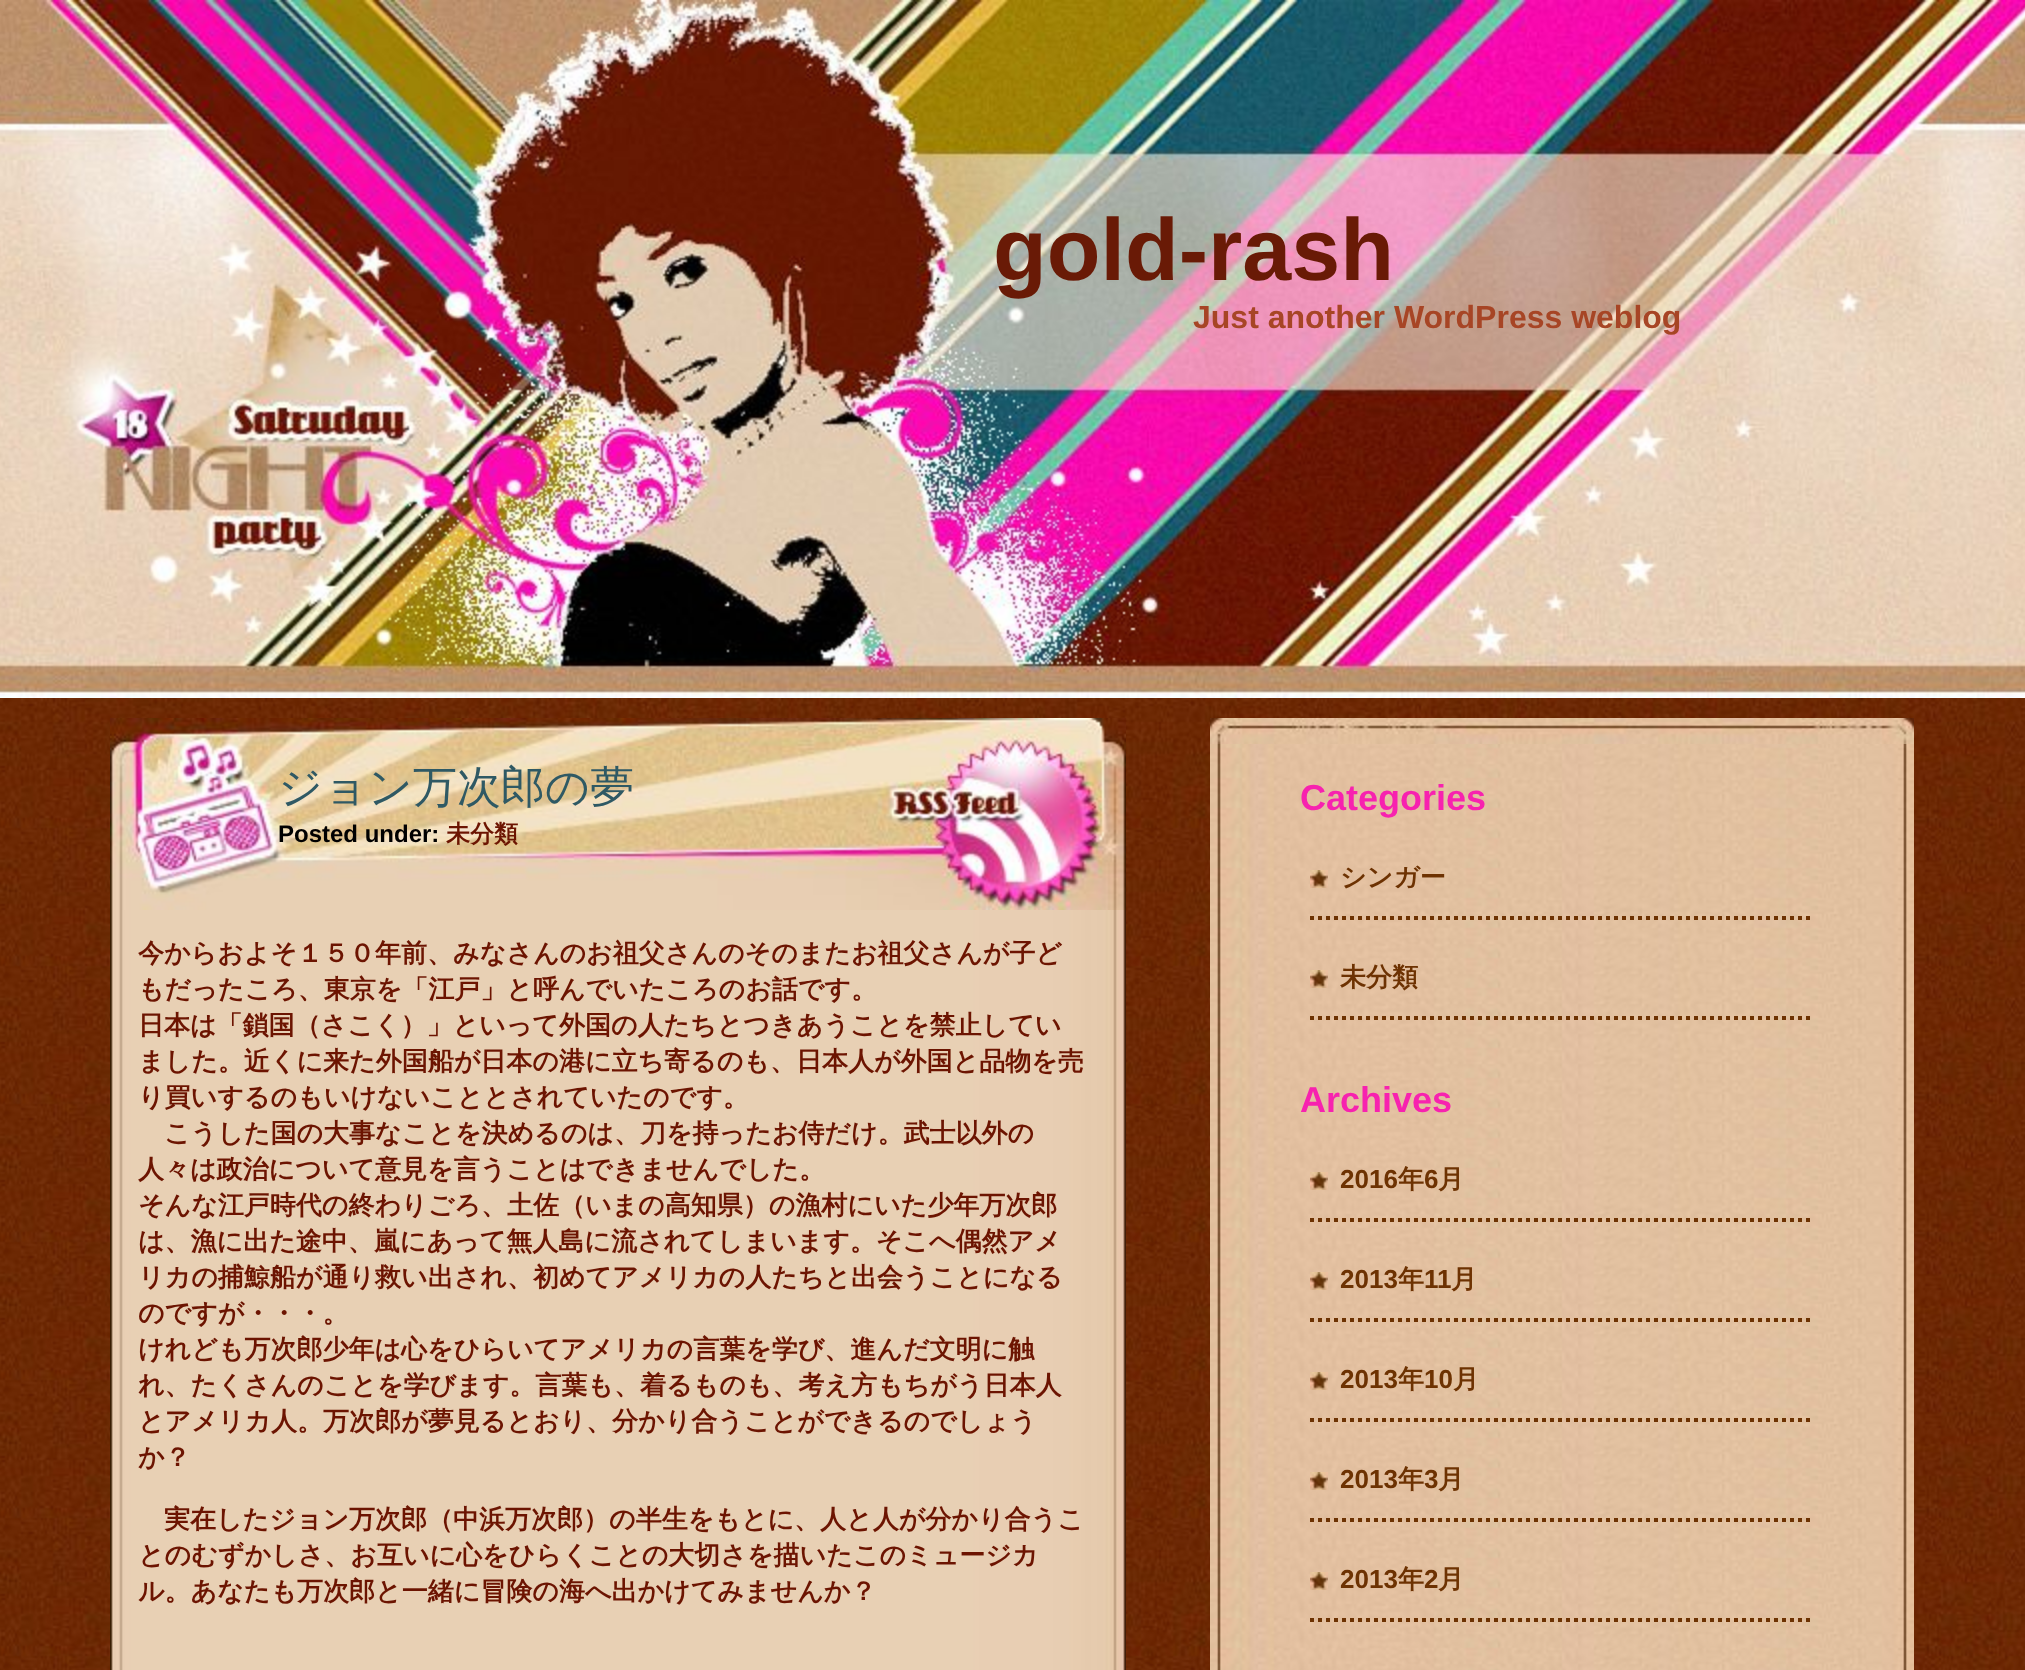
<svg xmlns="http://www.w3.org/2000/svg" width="2025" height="1670">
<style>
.a{font:bold 88px Liberation Sans;fill:#691a06}
.b{font:bold 32px Liberation Sans;fill:#a74525}
.c{font:500 44px WenQuanYi Zen Hei;fill:#2f5964}
.d{font:bold 24px Liberation Sans;fill:#000}
.e{font:bold 24px WenQuanYi Zen Hei;fill:#6c1401}
.f{font:bold 26px WenQuanYi Zen Hei;fill:#6c1401}
.g{font:bold 36px Liberation Sans;fill:#f722af}
.h{font:bold 26px WenQuanYi Zen Hei;fill:#6d3202}
.i{font:bold 26px Liberation Sans;fill:#6d3202}
</style>
<rect width="100%" height="100%" fill="#fff"/>
<image href="1.png" x="0" y="698" width="2025" height="972"/>
<image href="2.png" x="0" y="0" width="2025" height="698"/>
<image href="3.png" x="110" y="718" width="1016" height="192"/>
<image href="4.png" x="110" y="910" width="1016" height="760"/>
<image href="5.png" x="1210" y="744" width="704" height="926"/>
<image href="6.png" x="1210" y="718" width="704" height="26"/>
<image href="7.png" x="1310" y="870" width="18" height="18"/>
<path fill="none" stroke="#6d3202" stroke-width="4" stroke-dasharray="4 4" d="M1310 918h500"/>
<image href="7.png" x="1310" y="970" width="18" height="18"/>
<path fill="none" stroke="#6d3202" stroke-width="4" stroke-dasharray="4 4" d="M1310 1018h500"/>
<image href="7.png" x="1310" y="1172" width="18" height="18"/>
<path fill="none" stroke="#6d3202" stroke-width="4" stroke-dasharray="4 4" d="M1310 1220h500"/>
<image href="7.png" x="1310" y="1272" width="18" height="18"/>
<path fill="none" stroke="#6d3202" stroke-width="4" stroke-dasharray="4 4" d="M1310 1320h500"/>
<image href="7.png" x="1310" y="1372" width="18" height="18"/>
<path fill="none" stroke="#6d3202" stroke-width="4" stroke-dasharray="4 4" d="M1310 1420h500"/>
<image href="7.png" x="1310" y="1472" width="18" height="18"/>
<path fill="none" stroke="#6d3202" stroke-width="4" stroke-dasharray="4 4" d="M1310 1520h500"/>
<image href="7.png" x="1310" y="1572" width="18" height="18"/>
<path fill="none" stroke="#6d3202" stroke-width="4" stroke-dasharray="4 4" d="M1310 1620h500"/>
<text class="a" x="993" y="280">gold-rash</text>
<text class="b" x="1193" y="328">Just another WordPress weblog</text>
<text class="c" x="278" y="802">ジョン万次郎の夢</text>
<text class="d" x="278" y="842">Posted under:</text>
<text class="e" x="446" y="842">未分類</text>
<text class="f" x="138" y="962">今からおよそ１５０年前、みなさんのお祖父さんのそのまたお祖父さんが子ど</text>
<text class="f" x="138" y="998">もだったころ、東京を「江戸」と呼んでいたころのお話です。</text>
<text class="f" x="138" y="1034">日本は「鎖国（さこく）」といって外国の人たちとつきあうことを禁止してい</text>
<text class="f" x="138" y="1070">ました。近くに来た外国船が日本の港に立ち寄るのも、日本人が外国と品物を売</text>
<text class="f" x="138" y="1106">り買いするのもいけないこととされていたのです。</text>
<text class="f" x="164" y="1142">こうした国の大事なことを決めるのは、刀を持ったお侍だけ。武士以外の</text>
<text class="f" x="138" y="1178">人々は政治について意見を言うことはできませんでした。</text>
<text class="f" x="138" y="1214">そんな江戸時代の終わりごろ、土佐（いまの高知県）の漁村にいた少年万次郎</text>
<text class="f" x="138" y="1250">は、漁に出た途中、嵐にあって無人島に流されてしまいます。そこへ偶然アメ</text>
<text class="f" x="138" y="1286">リカの捕鯨船が通り救い出され、初めてアメリカの人たちと出会うことになる</text>
<text class="f" x="138" y="1322">のですが・・・。</text>
<text class="f" x="138" y="1358">けれども万次郎少年は心をひらいてアメリカの言葉を学び、進んだ文明に触</text>
<text class="f" x="138" y="1394">れ、たくさんのことを学びます。言葉も、着るものも、考え方もちがう日本人</text>
<text class="f" x="138" y="1430">とアメリカ人。万次郎が夢見るとおり、分かり合うことができるのでしょう</text>
<text class="f" x="138" y="1466">か？</text>
<text class="f" x="164" y="1528">実在したジョン万次郎（中浜万次郎）の半生をもとに、人と人が分かり合うこ</text>
<text class="f" x="138" y="1564">とのむずかしさ、お互いに心をひらくことの大切さを描いたこのミュージカ</text>
<text class="f" x="138" y="1600">ル。あなたも万次郎と一緒に冒険の海へ出かけてみませんか？</text>
<text class="g" x="1300" y="810">Categories</text>
<text class="h" x="1340" y="886">シンガー</text>
<text class="h" x="1340" y="986">未分類</text>
<text class="g" x="1300" y="1112">Archives</text>
<text class="i" x="1340" y="1188">2016</text>
<text class="h" x="1398" y="1188">年</text>
<text class="i" x="1424" y="1188">6</text>
<text class="h" x="1438" y="1188">月</text>
<text class="i" x="1340" y="1288">2013</text>
<text class="h" x="1398" y="1288">年</text>
<text class="i" x="1424" y="1288">11</text>
<text class="h" x="1451" y="1288">月</text>
<text class="i" x="1340" y="1388">2013</text>
<text class="h" x="1398" y="1388">年</text>
<text class="i" x="1424" y="1388">10</text>
<text class="h" x="1453" y="1388">月</text>
<text class="i" x="1340" y="1488">2013</text>
<text class="h" x="1398" y="1488">年</text>
<text class="i" x="1424" y="1488">3</text>
<text class="h" x="1438" y="1488">月</text>
<text class="i" x="1340" y="1588">2013</text>
<text class="h" x="1398" y="1588">年</text>
<text class="i" x="1424" y="1588">2</text>
<text class="h" x="1438" y="1588">月</text>
</svg>
